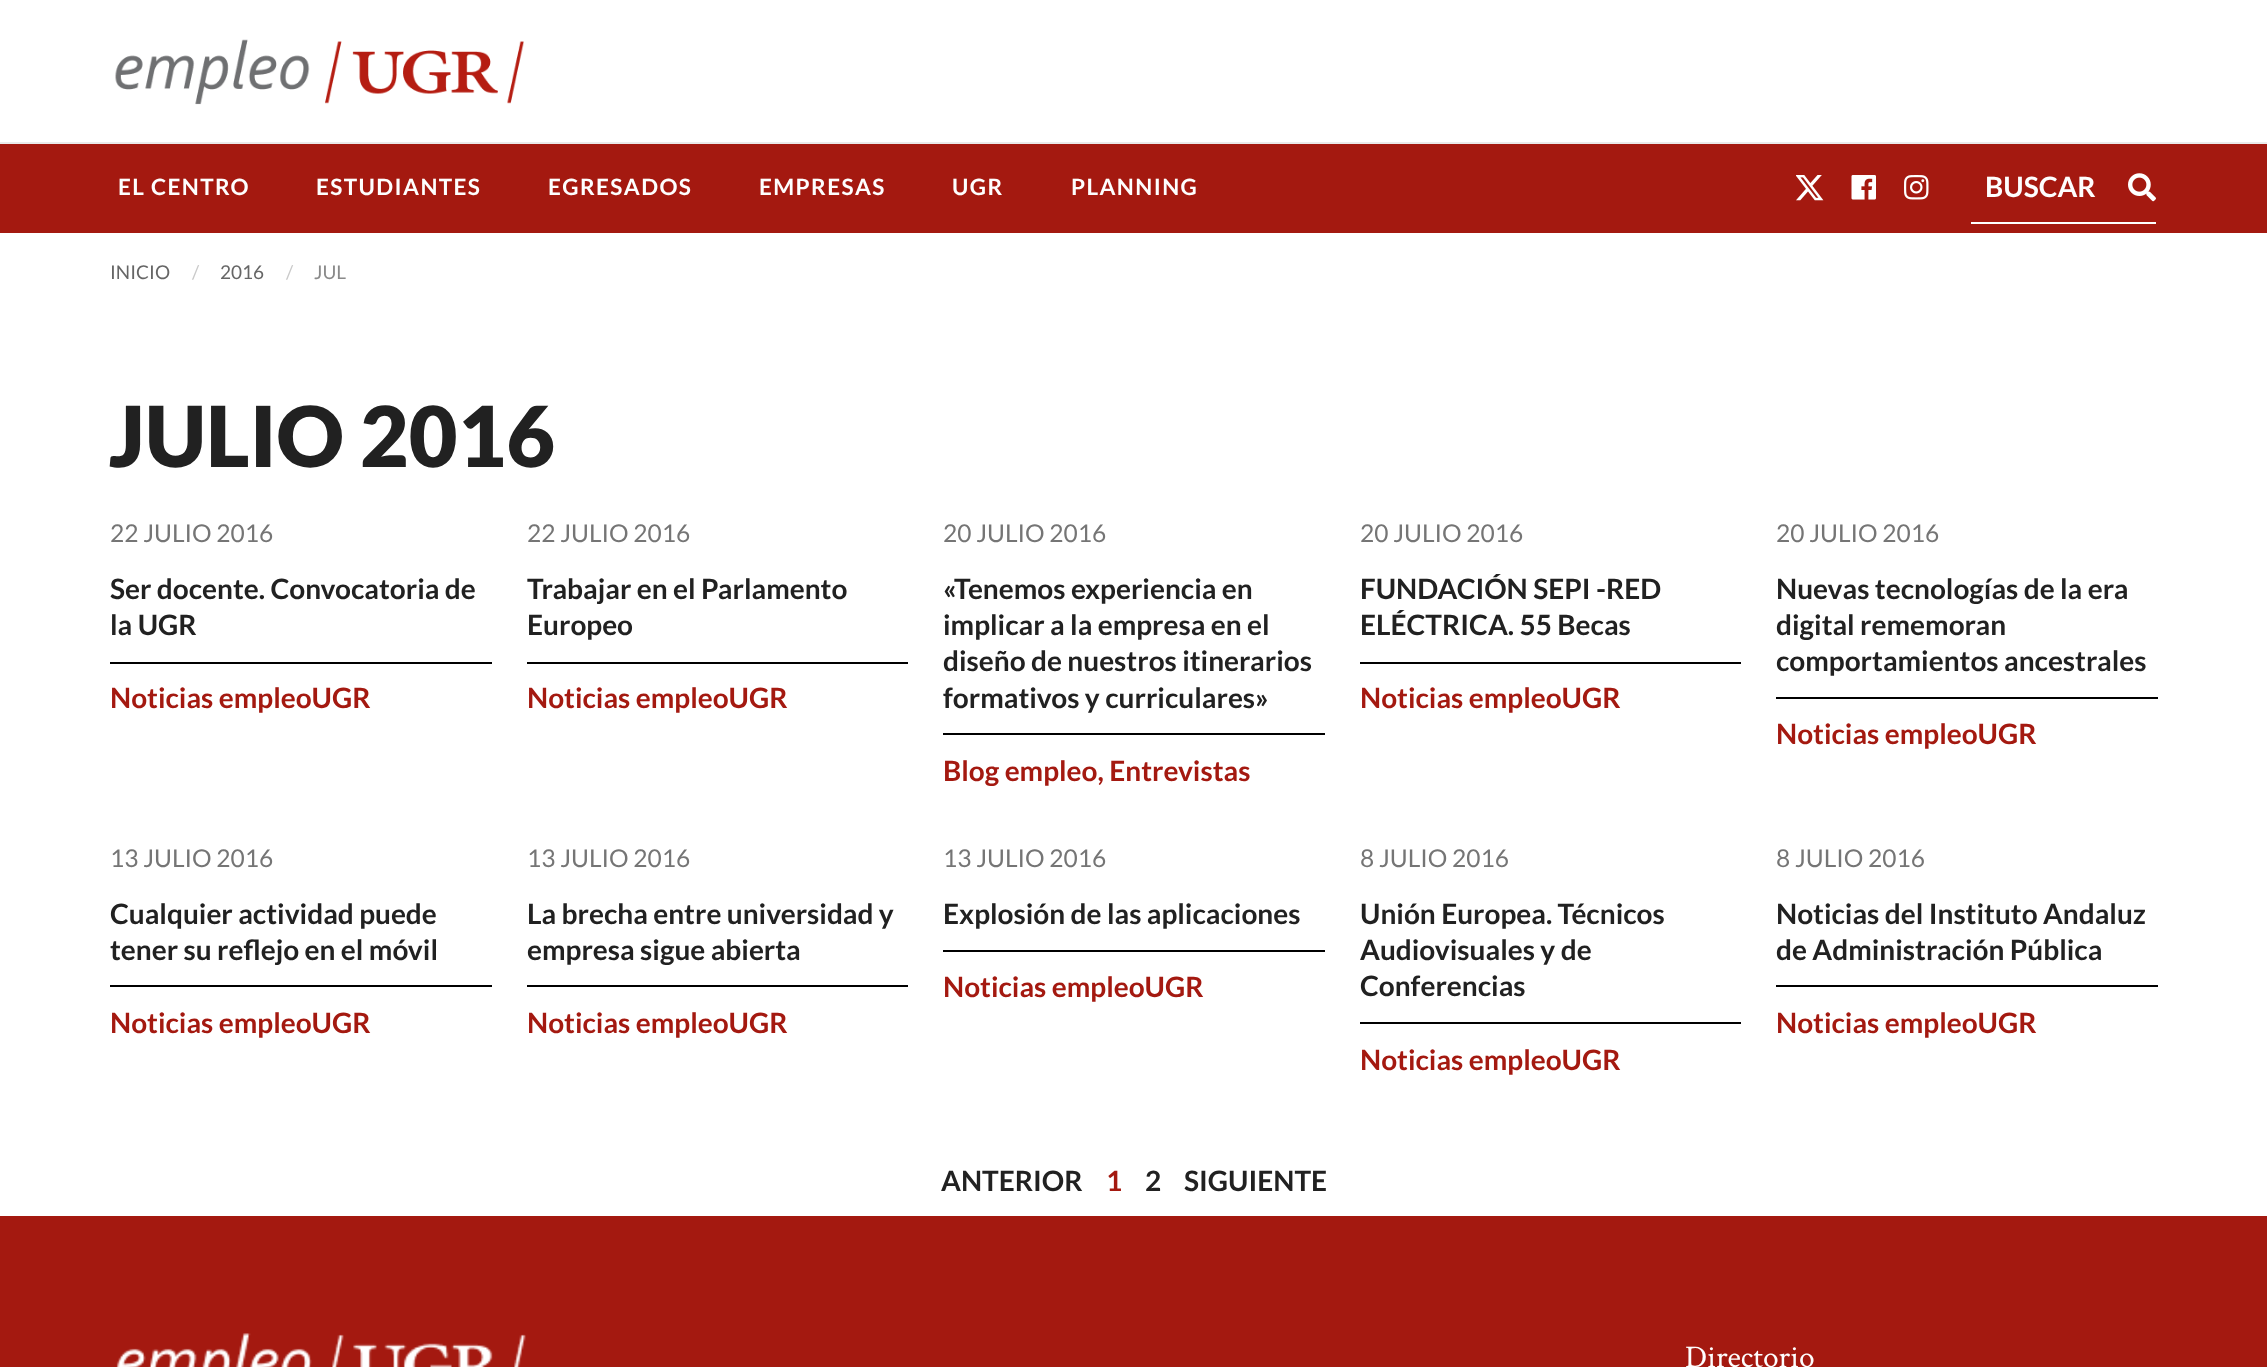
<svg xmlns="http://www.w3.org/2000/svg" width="2267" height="1367">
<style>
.a{font:bold 22.5px Lato;letter-spacing:1.4px;fill:#fefefe}
.b{font:bold 28px Lato;fill:#fefefe}
.c{font:19px Lato;fill:#666}
.d{font:19px Lato;fill:#cacaca}
.e{font:19px Lato;fill:#8a8a8a}
.f{font:900 84px Lato;fill:#212121}
.g{font:24.5px Lato;fill:#757575}
.h{font:bold 28px Lato;fill:#212121}
.i{font:bold 28px Lato;fill:#a41910}
.j{font:31.5px Crimson Text;fill:#fefefe}
</style>
<rect width="100%" height="100%" fill="#fff"/>
<image href="1.png" x="115" y="39" width="409" height="66"/>
<path fill="#eaeaea" d="M0 142h2267v2H0z"/>
<path fill="#a41910" d="M0 144h2267v89H0z"/>
<image href="2.png" x="1796" y="175" width="28" height="26"/>
<image href="3.png" x="1851" y="175" width="25" height="25"/>
<image href="4.png" x="1904" y="175" width="25" height="25"/>
<path fill="#fff" d="M1971 222h185v2H1971z"/>
<image href="5.png" x="2128" y="173" width="28" height="29"/>
<path fill="#000" d="M110 662h382v2H110z"/>
<path fill="#000" d="M527 662h381v2H527z"/>
<path fill="#000" d="M943 733h382v2H943z"/>
<path fill="#000" d="M1360 662h381v2H1360z"/>
<path fill="#000" d="M1776 697h382v2H1776z"/>
<path fill="#000" d="M110 985h382v2H110z"/>
<path fill="#000" d="M527 985h381v2H527z"/>
<path fill="#000" d="M943 950h382v2H943z"/>
<path fill="#000" d="M1360 1022h381v2H1360z"/>
<path fill="#000" d="M1776 985h382v2H1776z"/>
<path fill="#a41910" d="M0 1216h2267v151H0z"/>
<image href="6.png" x="116" y="1333" width="410" height="34"/>
<text class="a" x="118" y="195">EL CENTRO</text>
<text class="a" x="316" y="195">ESTUDIANTES</text>
<text class="a" x="548" y="195">EGRESADOS</text>
<text class="a" x="759" y="195">EMPRESAS</text>
<text class="a" x="952" y="195">UGR</text>
<text class="a" x="1071" y="195">PLANNING</text>
<text class="b" x="1985" y="197">BUSCAR</text>
<text class="c" x="110" y="279">INICIO</text>
<text class="d" x="192" y="279">/</text>
<text class="c" x="220" y="279">2016</text>
<text class="d" x="286" y="279">/</text>
<text class="e" x="314" y="279">JUL</text>
<text class="f" x="109" y="467">JULIO 2016</text>
<text class="g" x="110" y="542">22 JULIO 2016</text>
<text class="h" x="110" y="599">Ser docente. Convocatoria de</text>
<text class="h" x="110" y="635">la UGR</text>
<text class="i" x="110" y="708">Noticias empleoUGR</text>
<text class="g" x="527" y="542">22 JULIO 2016</text>
<text class="h" x="527" y="599">Trabajar en el Parlamento</text>
<text class="h" x="527" y="635">Europeo</text>
<text class="i" x="527" y="708">Noticias empleoUGR</text>
<text class="g" x="943" y="542">20 JULIO 2016</text>
<text class="h" x="943" y="599">«Tenemos experiencia en</text>
<text class="h" x="943" y="635">implicar a la empresa en el</text>
<text class="h" x="943" y="671">diseño de nuestros itinerarios</text>
<text class="h" x="943" y="708">formativos y curriculares»</text>
<text class="i" x="943" y="781">Blog empleo, Entrevistas</text>
<text class="g" x="1360" y="542">20 JULIO 2016</text>
<text class="h" x="1360" y="599">FUNDACIÓN SEPI -RED</text>
<text class="h" x="1360" y="635">ELÉCTRICA. 55 Becas</text>
<text class="i" x="1360" y="708">Noticias empleoUGR</text>
<text class="g" x="1776" y="542">20 JULIO 2016</text>
<text class="h" x="1776" y="599">Nuevas tecnologías de la era</text>
<text class="h" x="1776" y="635">digital rememoran</text>
<text class="h" x="1776" y="671">comportamientos ancestrales</text>
<text class="i" x="1776" y="744">Noticias empleoUGR</text>
<text class="g" x="110" y="867">13 JULIO 2016</text>
<text class="h" x="110" y="924">Cualquier actividad puede</text>
<text class="h" x="110" y="960">tener su reflejo en el móvil</text>
<text class="i" x="110" y="1033">Noticias empleoUGR</text>
<text class="g" x="527" y="867">13 JULIO 2016</text>
<text class="h" x="527" y="924">La brecha entre universidad y</text>
<text class="h" x="527" y="960">empresa sigue abierta</text>
<text class="i" x="527" y="1033">Noticias empleoUGR</text>
<text class="g" x="943" y="867">13 JULIO 2016</text>
<text class="h" x="943" y="924">Explosión de las aplicaciones</text>
<text class="i" x="943" y="997">Noticias empleoUGR</text>
<text class="g" x="1360" y="867">8 JULIO 2016</text>
<text class="h" x="1360" y="924">Unión Europea. Técnicos</text>
<text class="h" x="1360" y="960">Audiovisuales y de</text>
<text class="h" x="1360" y="996">Conferencias</text>
<text class="i" x="1360" y="1070">Noticias empleoUGR</text>
<text class="g" x="1776" y="867">8 JULIO 2016</text>
<text class="h" x="1776" y="924">Noticias del Instituto Andaluz</text>
<text class="h" x="1776" y="960">de Administración Pública</text>
<text class="i" x="1776" y="1033">Noticias empleoUGR</text>
<text class="h" x="941" y="1191">ANTERIOR</text>
<text class="i" x="1106" y="1191">1</text>
<text class="h" x="1145" y="1191">2</text>
<text class="h" x="1184" y="1191">SIGUIENTE</text>
<text class="j" x="1685" y="1367">Directorio</text>
</svg>
